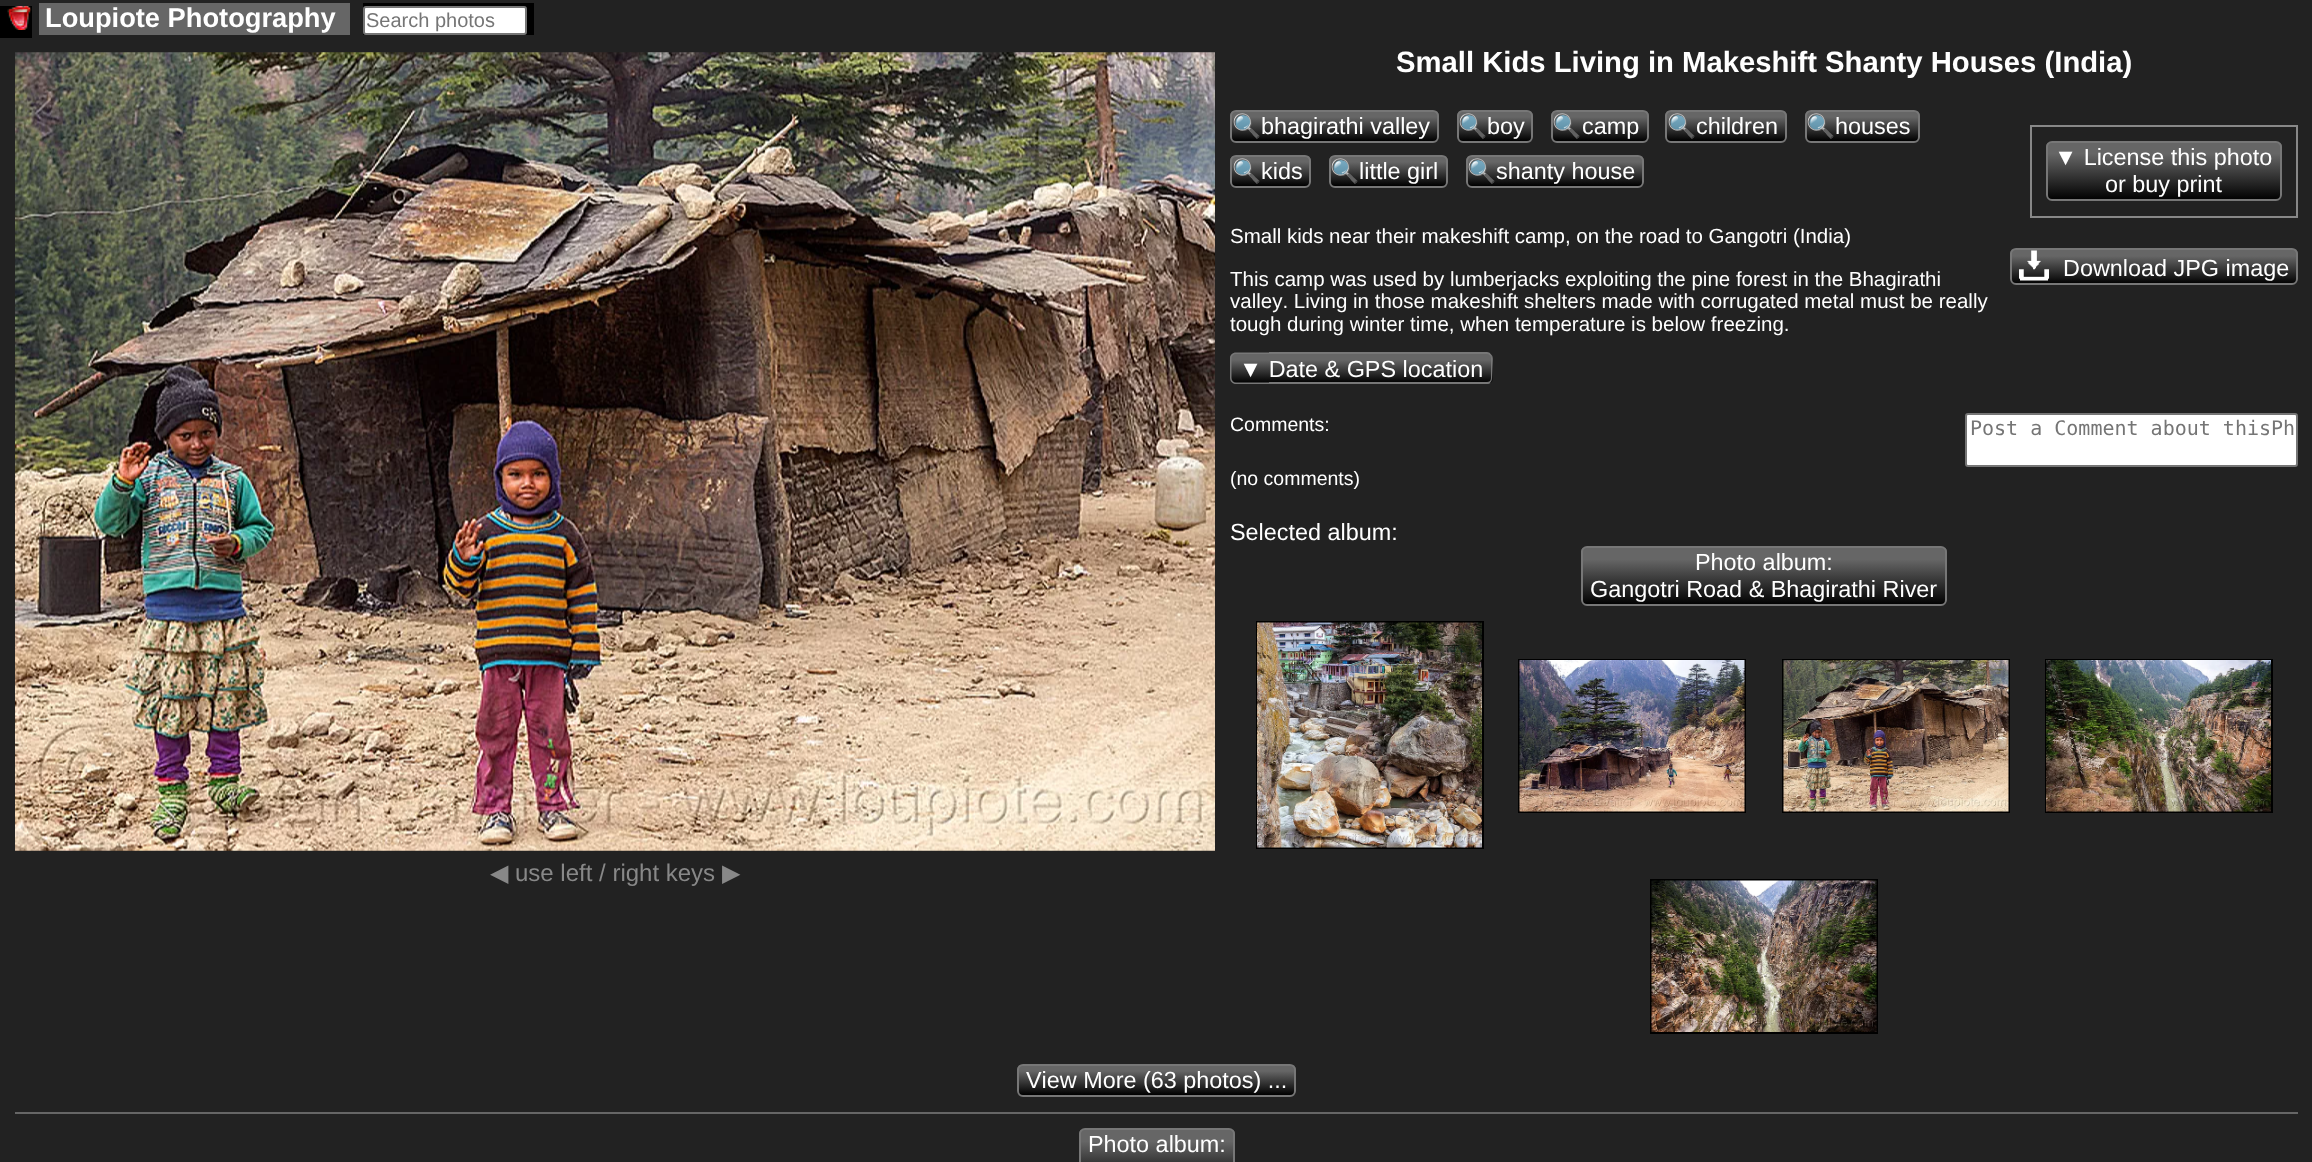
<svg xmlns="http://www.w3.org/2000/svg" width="2312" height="1162">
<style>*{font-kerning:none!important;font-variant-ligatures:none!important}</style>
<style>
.a{font:bold 27.25px Liberation Sans;fill:#fff}
.b{font:20px Liberation Sans;fill:#757575}
.c{font:24px DejaVu Sans;fill:#888}
.d{font:24px Liberation Sans;fill:#888}
.e{font:bold 29.25px Liberation Sans;fill:#fff}
.f{font:23.4px Noto Color Emoji;fill:#fff}
.g{font:23.4px Liberation Sans;fill:#fff}
.h{font:20.5px Liberation Sans;fill:#fff}
.i{font:19.5px Liberation Sans;fill:#fff}
.j{font:20px DejaVu Sans Mono;fill:#757575}
</style>
<defs>
<clipPath id="clip1"><rect x="1230" y="110" width="209" height="33" rx="6"/></clipPath>
<linearGradient id="g1" gradientUnits="userSpaceOnUse" x1="1334" y1="111" x2="1334" y2="141"><stop offset="0" stop-color="#666"/><stop offset="0.2" stop-color="#666"/><stop offset="1" stop-color="#000"/></linearGradient>
<clipPath id="clip2"><rect x="1457" y="110" width="76" height="33" rx="6"/></clipPath>
<linearGradient id="g2" gradientUnits="userSpaceOnUse" x1="1495" y1="111" x2="1495" y2="141"><stop offset="0" stop-color="#666"/><stop offset="0.2" stop-color="#666"/><stop offset="1" stop-color="#000"/></linearGradient>
<clipPath id="clip3"><rect x="1551" y="110" width="98" height="33" rx="6"/></clipPath>
<linearGradient id="g3" gradientUnits="userSpaceOnUse" x1="1600" y1="111" x2="1600" y2="141"><stop offset="0" stop-color="#666"/><stop offset="0.2" stop-color="#666"/><stop offset="1" stop-color="#000"/></linearGradient>
<clipPath id="clip4"><rect x="1665" y="110" width="122" height="33" rx="6"/></clipPath>
<linearGradient id="g4" gradientUnits="userSpaceOnUse" x1="1726" y1="111" x2="1726" y2="141"><stop offset="0" stop-color="#666"/><stop offset="0.2" stop-color="#666"/><stop offset="1" stop-color="#000"/></linearGradient>
<clipPath id="clip5"><rect x="1805" y="110" width="115" height="33" rx="6"/></clipPath>
<linearGradient id="g5" gradientUnits="userSpaceOnUse" x1="1862" y1="111" x2="1862" y2="141"><stop offset="0" stop-color="#666"/><stop offset="0.2" stop-color="#666"/><stop offset="1" stop-color="#000"/></linearGradient>
<clipPath id="clip6"><rect x="1230" y="155" width="81" height="33" rx="6"/></clipPath>
<linearGradient id="g6" gradientUnits="userSpaceOnUse" x1="1271" y1="156" x2="1271" y2="186"><stop offset="0" stop-color="#666"/><stop offset="0.2" stop-color="#666"/><stop offset="1" stop-color="#000"/></linearGradient>
<clipPath id="clip7"><rect x="1329" y="155" width="119" height="33" rx="6"/></clipPath>
<linearGradient id="g7" gradientUnits="userSpaceOnUse" x1="1388" y1="156" x2="1388" y2="186"><stop offset="0" stop-color="#666"/><stop offset="0.2" stop-color="#666"/><stop offset="1" stop-color="#000"/></linearGradient>
<clipPath id="clip8"><rect x="1466" y="155" width="178" height="33" rx="6"/></clipPath>
<linearGradient id="g8" gradientUnits="userSpaceOnUse" x1="1555" y1="156" x2="1555" y2="186"><stop offset="0" stop-color="#666"/><stop offset="0.2" stop-color="#666"/><stop offset="1" stop-color="#000"/></linearGradient>
<clipPath id="clip9"><rect x="2046" y="141" width="236" height="60" rx="6"/></clipPath>
<linearGradient id="g9" gradientUnits="userSpaceOnUse" x1="2164" y1="142" x2="2164" y2="200"><stop offset="0" stop-color="#666"/><stop offset="0.2" stop-color="#666"/><stop offset="1" stop-color="#000"/></linearGradient>
<clipPath id="clip10"><rect x="2010" y="248" width="288" height="37" rx="6"/></clipPath>
<linearGradient id="g10" gradientUnits="userSpaceOnUse" x1="2154" y1="249" x2="2154" y2="284"><stop offset="0" stop-color="#666"/><stop offset="0.2" stop-color="#666"/><stop offset="1" stop-color="#000"/></linearGradient>
<clipPath id="clip11"><path d="M1236 353h33v31h-33c-3.5 0-6-2.5-6-6v-19c0-3.5 2.5-6 6-6z"/></clipPath>
<linearGradient id="g11" gradientUnits="userSpaceOnUse" x1="1250" y1="354" x2="1250" y2="383"><stop offset="0" stop-color="#666"/><stop offset="0.2" stop-color="#666"/><stop offset="1" stop-color="#000"/></linearGradient>
<clipPath id="clip12"><path d="M1269 353h218c3.5 0 6 2.5 6 6v19c0 3.5-2.5 6-6 6h-218z"/></clipPath>
<linearGradient id="g12" gradientUnits="userSpaceOnUse" x1="1380" y1="354" x2="1380" y2="383"><stop offset="0" stop-color="#666"/><stop offset="0.2" stop-color="#666"/><stop offset="1" stop-color="#000"/></linearGradient>
<linearGradient id="g13" gradientUnits="userSpaceOnUse" x1="1380" y1="383" x2="1380" y2="411"><stop offset="0" stop-color="#666"/><stop offset="0.2" stop-color="#666"/><stop offset="1" stop-color="#000"/></linearGradient>
<clipPath id="clip13"><rect x="1581" y="546" width="366" height="60" rx="6"/></clipPath>
<linearGradient id="g14" gradientUnits="userSpaceOnUse" x1="1764" y1="548" x2="1764" y2="605"><stop offset="0" stop-color="#666"/><stop offset="0.2" stop-color="#666"/><stop offset="1" stop-color="#000"/></linearGradient>
<clipPath id="clip14"><rect x="1017" y="1064" width="279" height="33" rx="6"/></clipPath>
<linearGradient id="g15" gradientUnits="userSpaceOnUse" x1="1157" y1="1065" x2="1157" y2="1095"><stop offset="0" stop-color="#666"/><stop offset="0.2" stop-color="#666"/><stop offset="1" stop-color="#000"/></linearGradient>
<clipPath id="clip15"><rect x="1079" y="1128" width="156" height="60" rx="6"/></clipPath>
<linearGradient id="g16" gradientUnits="userSpaceOnUse" x1="1157" y1="1130" x2="1157" y2="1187"><stop offset="0" stop-color="#666"/><stop offset="0.2" stop-color="#666"/><stop offset="1" stop-color="#000"/></linearGradient>
</defs>
<rect width="100%" height="100%" fill="#222"/>
<path fill="#000" d="M0 6h32v32H0z"/>
<image href="1.png" x="7" y="6" width="25" height="24"/>
<path fill="#666" d="M39 3h311v32H39z"/>
<path fill="#000" d="M363 3h171v32H363z"/>
<rect fill="#fff" stroke="#767676" stroke-width="2" x="364" y="7" width="162" height="27" rx="2"/>
<image href="2.png" x="15" y="52" width="1200" height="799"/>
<image href="3.png" x="15" y="52" width="1200" height="799"/>
<g clip-path="url(#clip1)">
<path fill="url(#g1)" d="M1230 111h209v30H1230z"/>
</g>
<rect fill="none" stroke="#777" stroke-width="2" x="1231" y="111" width="207" height="31" rx="5"/>
<g clip-path="url(#clip2)">
<path fill="url(#g2)" d="M1457 111h76v30H1457z"/>
</g>
<rect fill="none" stroke="#777" stroke-width="2" x="1458" y="111" width="74" height="31" rx="5"/>
<g clip-path="url(#clip3)">
<path fill="url(#g3)" d="M1551 111h98v30H1551z"/>
</g>
<rect fill="none" stroke="#777" stroke-width="2" x="1552" y="111" width="96" height="31" rx="5"/>
<g clip-path="url(#clip4)">
<path fill="url(#g4)" d="M1665 111h122v30H1665z"/>
</g>
<rect fill="none" stroke="#777" stroke-width="2" x="1666" y="111" width="120" height="31" rx="5"/>
<g clip-path="url(#clip5)">
<path fill="url(#g5)" d="M1805 111h115v30H1805z"/>
</g>
<rect fill="none" stroke="#777" stroke-width="2" x="1806" y="111" width="113" height="31" rx="5"/>
<g clip-path="url(#clip6)">
<path fill="url(#g6)" d="M1230 156h81v30H1230z"/>
</g>
<rect fill="none" stroke="#777" stroke-width="2" x="1231" y="156" width="79" height="31" rx="5"/>
<g clip-path="url(#clip7)">
<path fill="url(#g7)" d="M1329 156h119v30H1329z"/>
</g>
<rect fill="none" stroke="#777" stroke-width="2" x="1330" y="156" width="117" height="31" rx="5"/>
<g clip-path="url(#clip8)">
<path fill="url(#g8)" d="M1466 156h178v30H1466z"/>
</g>
<rect fill="none" stroke="#777" stroke-width="2" x="1467" y="156" width="176" height="31" rx="5"/>
<path fill="none" stroke="#888" stroke-width="2" d="M2031 126h266v91H2031z"/>
<g clip-path="url(#clip9)">
<path fill="url(#g9)" d="M2046 143h236v57H2046z"/>
</g>
<rect fill="none" stroke="#777" stroke-width="2" x="2047" y="142" width="234" height="58" rx="5"/>
<g clip-path="url(#clip10)">
<path fill="url(#g10)" d="M2010 249h288v35H2010z"/>
</g>
<rect fill="none" stroke="#777" stroke-width="2" x="2011" y="249" width="286" height="35" rx="5"/>
<image href="4.png" x="2019" y="250" width="30" height="31"/>
<g clip-path="url(#clip11)">
<path fill="url(#g11)" d="M1230 354h39v29H1230z"/>
</g>
<path fill="#777" fill-rule="evenodd" d="M1236 352.5h33v31.5h-33c-3.5 0-6-2.5-6-6v-19.5c0-3.5 2.5-6 6-6zm0 1.5h33v28.5h-33c-2.5 0-4.5-2-4.5-4.5v-19.5c0-2.5 2-4.5 4.5-4.5z"/>
<g clip-path="url(#clip12)">
<path fill="url(#g12)" d="M1269 354h224v29H1269z"/>
<path fill="url(#g13)" d="M1487 383h6v1H1487z"/>
</g>
<path fill="#777" fill-rule="evenodd" d="M1269 352h218c3 0 5 3 5 6v20c0 3-2 6-5 6h-218zm0 2h218c2 0 4 2 4 4v20c0 3-2 4-4 4h-218z"/>
<rect fill="#fff" stroke="#767676" stroke-width="2" x="1966" y="414" width="331" height="52" rx="2"/>
<g clip-path="url(#clip13)">
<path fill="url(#g14)" d="M1581 548h366v57H1581z"/>
</g>
<rect fill="none" stroke="#777" stroke-width="2" x="1582" y="547" width="364" height="58" rx="5"/>
<path fill="none" stroke="#000" stroke-width="2" d="M1257 622h226v226H1257z"/>
<image href="5.png" x="1257" y="622" width="225" height="226"/>
<path fill="none" stroke="#000" stroke-width="2" d="M1519 660h226v152H1519z"/>
<path fill="#000" d="M1520 661h224v150H1520z"/>
<image href="6.png" x="1519" y="660" width="226" height="152"/>
<path fill="none" stroke="#000" stroke-width="2" d="M1783 660h226v152H1783z"/>
<path fill="#000" d="M1784 661h224v150H1784z"/>
<image href="7.png" x="1783" y="660" width="226" height="152"/>
<path fill="none" stroke="#000" stroke-width="2" d="M2046 660h226v152H2046z"/>
<image href="8.png" x="2046" y="660" width="225" height="152"/>
<path fill="none" stroke="#000" stroke-width="2" d="M1651 880h226v153H1651z"/>
<image href="9.png" x="1651" y="880" width="226" height="152"/>
<g clip-path="url(#clip14)">
<path fill="url(#g15)" d="M1017 1065h279v30H1017z"/>
</g>
<rect fill="none" stroke="#777" stroke-width="2" x="1018" y="1065" width="277" height="31" rx="5"/>
<path fill="#666" d="M15 1112h2283v2H15z"/>
<g clip-path="url(#clip15)">
<path fill="url(#g16)" d="M1079 1130h156v32H1079z"/>
</g>
<rect fill="none" stroke="#777" stroke-width="2" x="1080" y="1129" width="154" height="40" rx="5"/>
<text class="a" x="45" y="27">Loupiote Photography</text>
<text class="b" x="366" y="27">Search photos</text>
<text class="c" x="490" y="881">◀</text>
<text class="d" x="515" y="881">use left / right keys</text>
<text class="c" x="722" y="881">▶</text>
<text class="e" x="1396" y="72">Small Kids Living in Makeshift Shanty Houses (India)</text>
<text class="f" x="1232" y="134">🔍</text>
<text class="g" x="1261" y="134">bhagirathi valley</text>
<text class="f" x="1458" y="134">🔍</text>
<text class="g" x="1487" y="134">boy</text>
<text class="f" x="1552" y="134">🔍</text>
<text class="g" x="1582" y="134">camp</text>
<text class="f" x="1667" y="134">🔍</text>
<text class="g" x="1696" y="134">children</text>
<text class="f" x="1806" y="134">🔍</text>
<text class="g" x="1835" y="134">houses</text>
<text class="f" x="1232" y="179">🔍</text>
<text class="g" x="1261" y="179">kids</text>
<text class="f" x="1330" y="179">🔍</text>
<text class="g" x="1359" y="179">little girl</text>
<text class="f" x="1467" y="179">🔍</text>
<text class="g" x="1496" y="179">shanty house</text>
<text class="g" x="2054" y="165">▼ License this photo</text>
<text class="g" x="2105" y="192">or buy print</text>
<text class="h" x="1230" y="243">Small kids near their makeshift camp, on the road to Gangotri (India)</text>
<text class="h" x="1230" y="286">This camp was used by lumberjacks exploiting the pine forest in the Bhagirathi</text>
<text class="h" x="1230" y="308">valley. Living in those makeshift shelters made with corrugated metal must be really</text>
<text class="h" x="1230" y="331">tough during winter time, when temperature is below freezing.</text>
<text class="g" x="2063" y="276">Download JPG image</text>
<text class="g" x="1239" y="377">▼ Date &amp; GPS location</text>
<text class="i" x="1230" y="431">Comments:</text>
<text class="j" x="1970" y="435">Post a Comment about thisPh</text>
<text class="i" x="1230" y="485">(no comments)</text>
<text class="g" x="1230" y="540">Selected album:</text>
<text class="g" x="1695" y="570">Photo album:</text>
<text class="g" x="1590" y="597">Gangotri Road &amp; Bhagirathi River</text>
<text class="g" x="1026" y="1088">View More (63 photos) ...</text>
<text class="g" x="1088" y="1152">Photo album:</text>
</svg>
